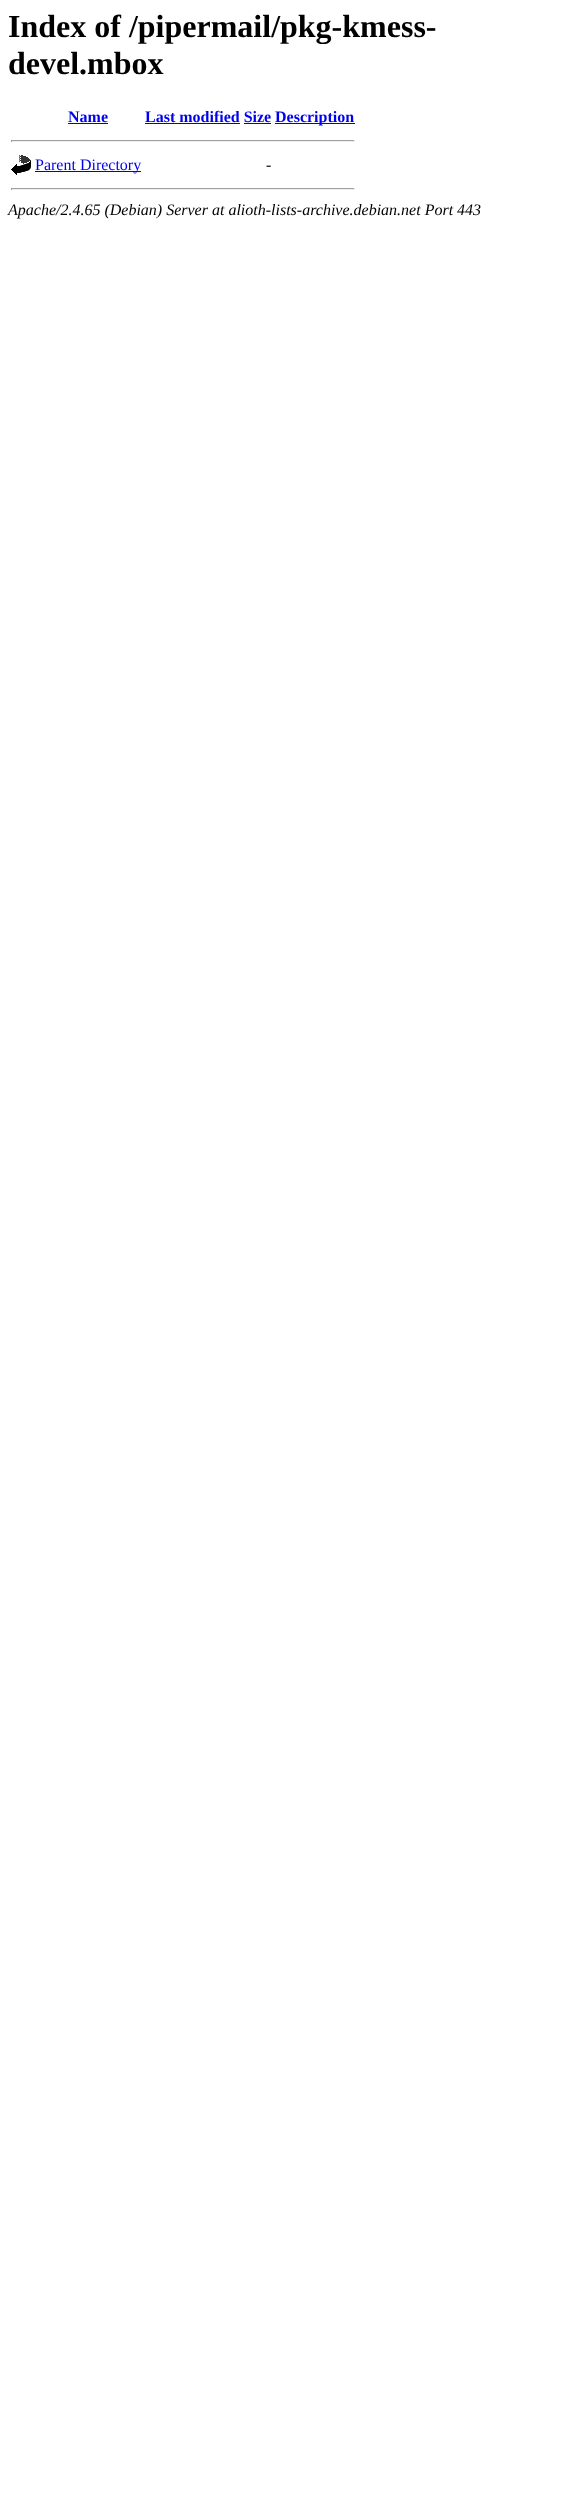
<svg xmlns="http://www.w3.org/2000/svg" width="570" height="2504">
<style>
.a{font:bold 32px Liberation Serif;fill:#000}
.b{font:bold 16px Liberation Serif;fill:#00e}
.c{font:16px Liberation Serif;fill:#00e}
.d{font:16px Liberation Serif;fill:#000}
.e{font:italic 16px Liberation Serif;fill:#000}
</style>
<rect width="100%" height="100%" fill="#fff"/>
<path fill="#00e" d="M68 123h40v1H68z"/>
<path fill="#00e" d="M145 123h95v1H145z"/>
<path fill="#00e" d="M275 123h80v1H275z"/>
<path fill="#00e" d="M244 123h27v1H244z"/>
<path fill="#9f9f9f" d="M11 140h344v1H11z"/>
<path fill="#eee" d="M354 140h1v2H354z"/>
<path fill="#eee" d="M11 141h344v1H11z"/>
<path fill="#9f9f9f" d="M11 140h1v2H11z"/>
<image href="1.png" x="11" y="155" width="20" height="20"/>
<path fill="#00e" d="M35 171h106v1H35z"/>
<path fill="#9f9f9f" d="M11 188h344v1H11z"/>
<path fill="#eee" d="M354 188h1v2H354z"/>
<path fill="#eee" d="M11 189h344v1H11z"/>
<path fill="#9f9f9f" d="M11 188h1v2H11z"/>
<text class="a" x="8" y="37">Index of /pipermail/pkg-kmess-</text>
<text class="a" x="8" y="74">devel.mbox</text>
<text class="b" x="68" y="122">Name</text>
<text class="b" x="145" y="122">Last modified Size</text>
<text class="b" x="275" y="122">Description</text>
<text class="c" x="35" y="170">Parent Directory</text>
<text class="d" x="266" y="170">-</text>
<text class="e" x="8" y="215">Apache/2.4.65 (Debian) Server at alioth-lists-archive.debian.net Port 443</text>
</svg>
